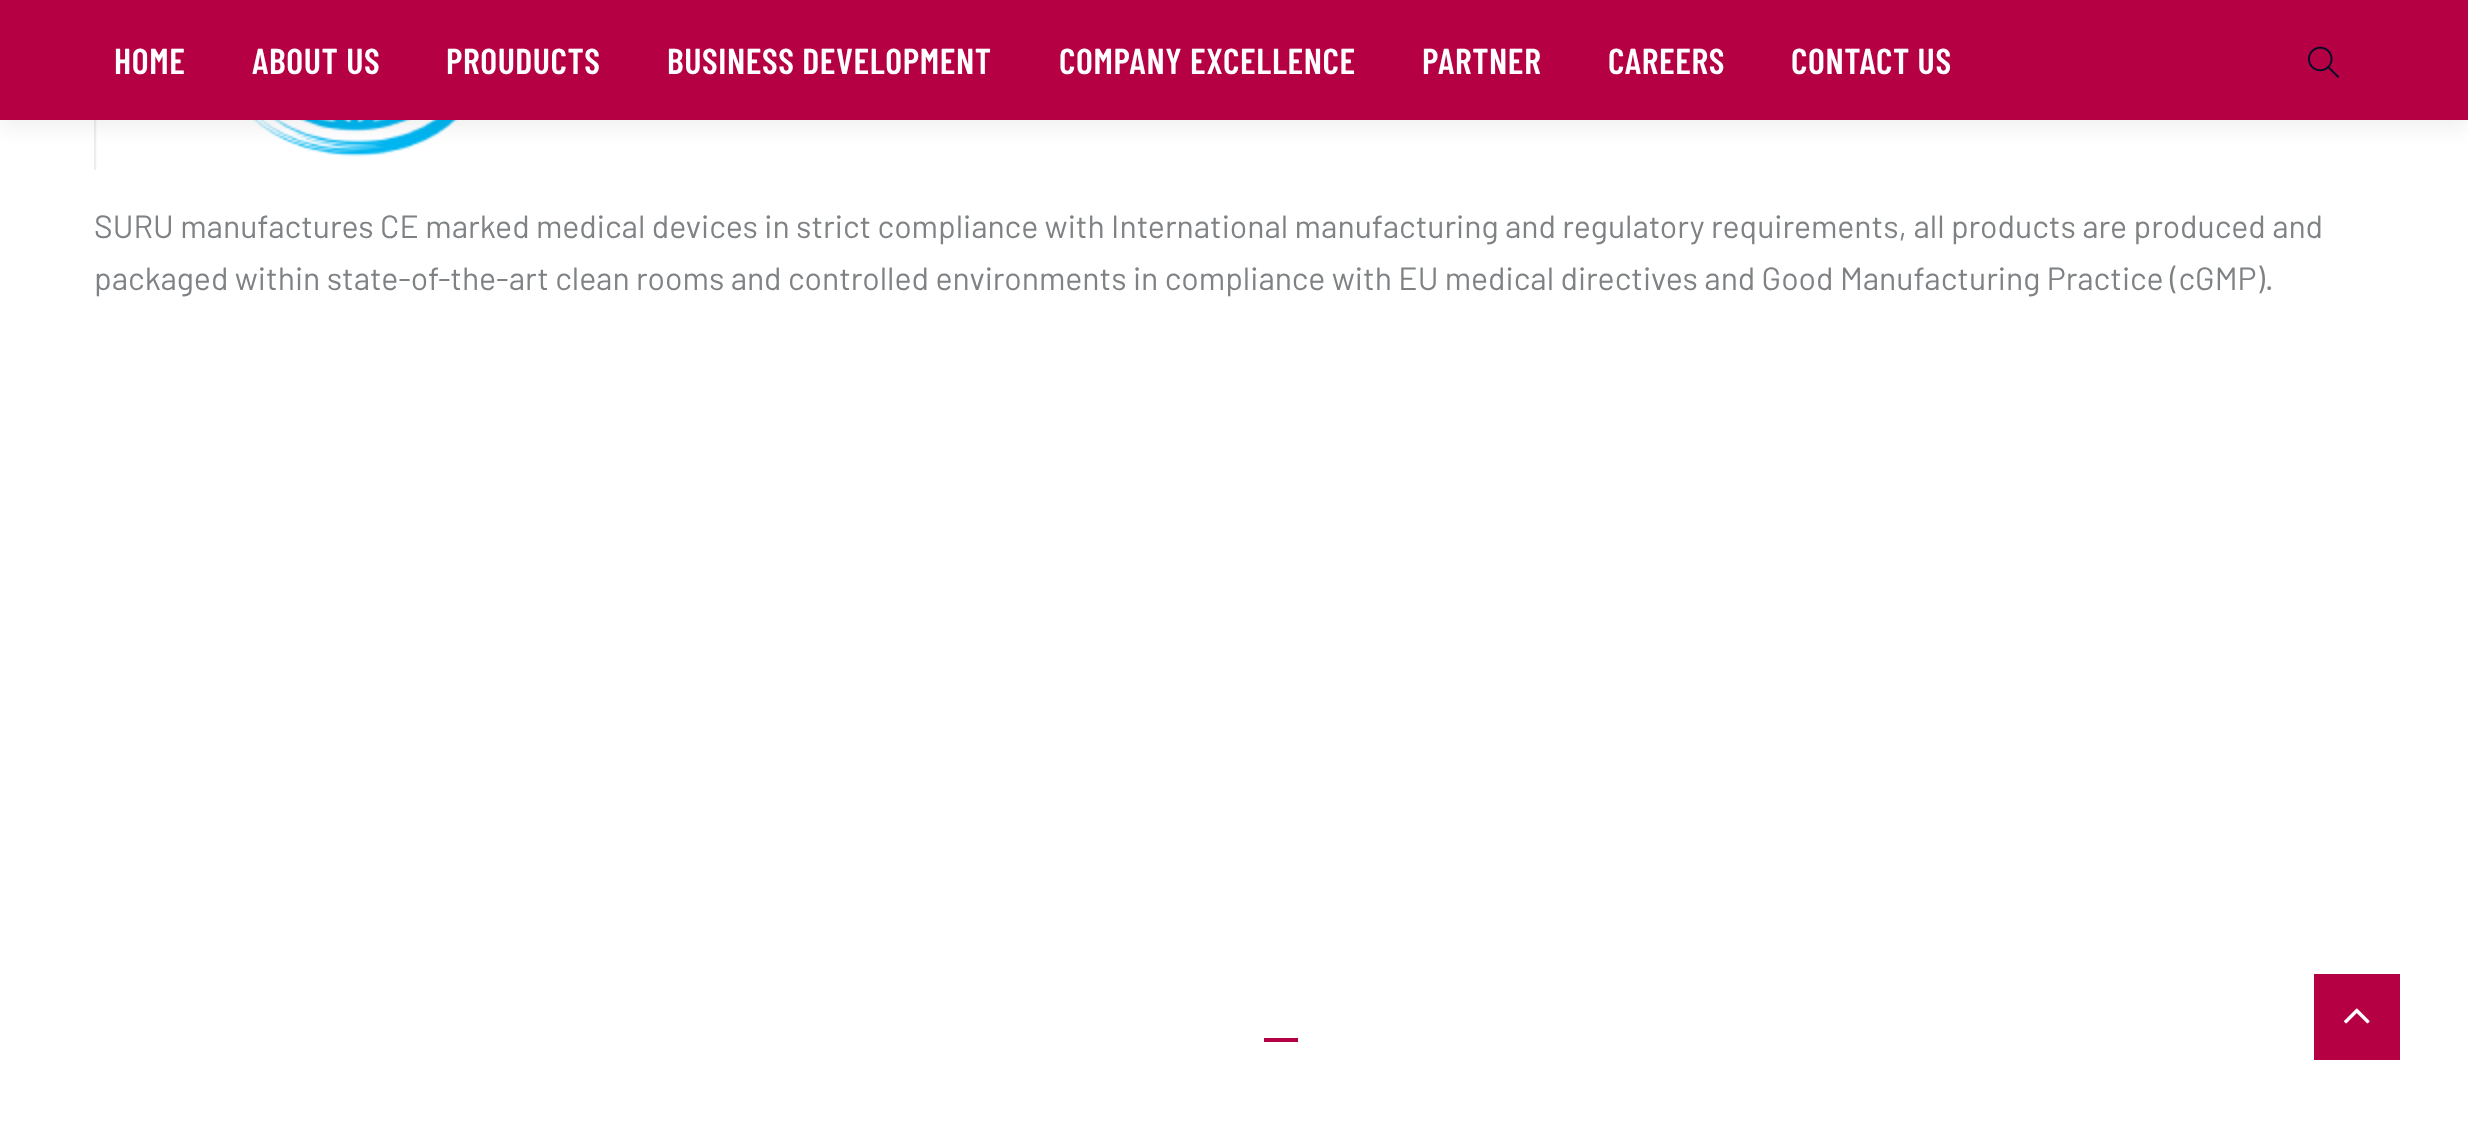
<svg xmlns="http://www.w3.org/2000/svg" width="2468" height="1127">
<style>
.a{font:600 36px Barlow Condensed;letter-spacing:0.6px;fill:#fff}
.b{font:32px Barlow;fill:#7f8284}
</style>
<rect width="100%" height="100%" fill="#fff"/>
<image href="2.png" x="94" y="120" width="364" height="50"/>
<path fill="#0000000f" filter="blur(10px)" d="M0 8h2468v120H0z"/>
<path fill="#b50043" d="M0 0h2468v120H0z"/>
<image href="1.png" x="2308" y="46" width="32" height="32"/>
<path fill="#b50043" d="M1264 1038h34v4H1264z"/>
<path fill="#b50043" d="M2314 974h86v86H2314z"/>
<image href="3.png" x="2344" y="1008" width="26" height="16"/>
<text class="a" x="114" y="74">HOME</text>
<text class="a" x="252" y="74">ABOUT US</text>
<text class="a" x="446" y="74">PROUDUCTS</text>
<text class="a" x="667" y="74">BUSINESS DEVELOPMENT</text>
<text class="a" x="1059" y="74">COMPANY EXCELLENCE</text>
<text class="a" x="1422" y="74">PARTNER</text>
<text class="a" x="1608" y="74">CAREERS</text>
<text class="a" x="1791" y="74">CONTACT US</text>
<text class="b" x="94" y="238">SURU manufactures CE marked medical devices in strict compliance with International manufacturing and regulatory requirements, all products are produced and</text>
<text class="b" x="94" y="290">packaged within state-of-the-art clean rooms and controlled environments in compliance with EU medical directives and Good Manufacturing Practice (cGMP).</text>
</svg>
